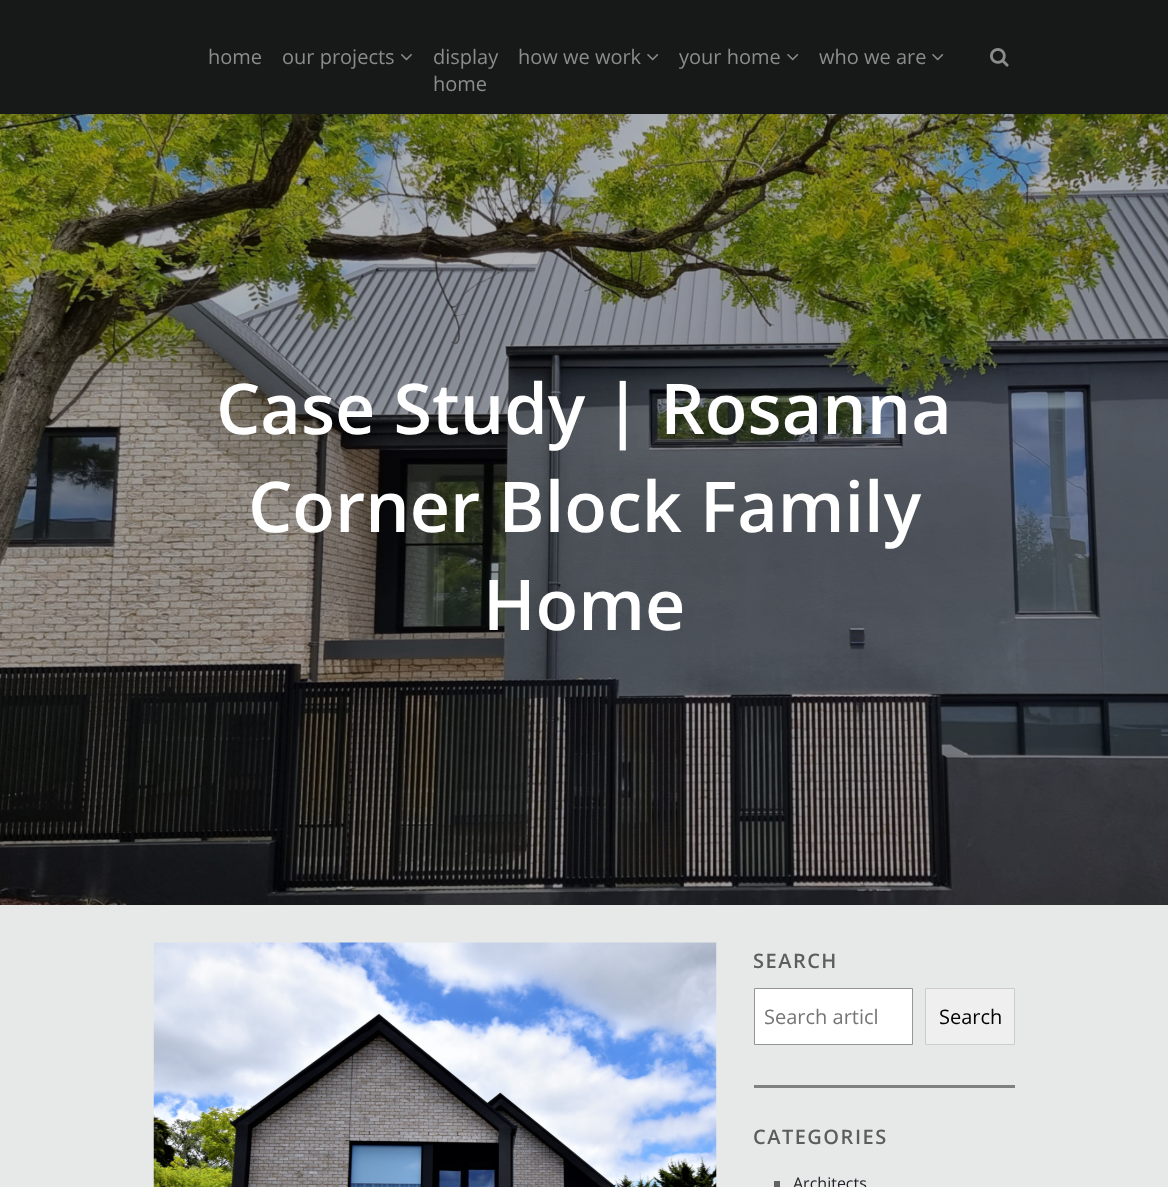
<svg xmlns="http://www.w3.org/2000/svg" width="1168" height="1187">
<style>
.a{font:20px Open Sans;fill:#8b8c8c}
.b{font:600 70px Open Sans;fill:#fff}
.c{font:600 20px Open Sans;letter-spacing:1.5px;fill:#5c5d5d}
.d{font:20px Open Sans;fill:#757575}
.e{font:20px Open Sans;fill:#000}
.f{font:16px Open Sans;fill:#222328}
</style>
<rect width="100%" height="100%" fill="#e7e8e8"/>
<path fill="#171818" d="M0 0h1168v114H0z"/>
<image href="1.png" x="401" y="54" width="11" height="7"/>
<image href="2.png" x="647" y="54" width="12" height="7"/>
<image href="2.png" x="787" y="54" width="12" height="7"/>
<image href="2.png" x="932" y="54" width="12" height="7"/>
<image href="3.png" x="990" y="48" width="19" height="19"/>
<image href="4.png" x="0" y="114" width="1168" height="791"/>
<image href="5.png" x="153" y="942" width="564" height="245"/>
<path fill="#fff" stroke="#949494" d="M754.5 988.5h158v56H754.5z"/>
<path fill="#efefef" stroke="#ccc" d="M925.5 988.5h89v56H925.5z"/>
<path fill="#808080" d="M754 1085h261v3H754z"/>
<path fill="#636363" d="M774 1181h6v6H774z"/>
<text class="a" x="208" y="64">home</text>
<text class="a" x="282" y="64">our projects</text>
<text class="a" x="433" y="64">display</text>
<text class="a" x="433" y="91">home</text>
<text class="a" x="518" y="64">how we work</text>
<text class="a" x="679" y="64">your home</text>
<text class="a" x="819" y="64">who we are</text>
<text class="b" x="216" y="434">Case Study | Rosanna</text>
<text class="b" x="248" y="532">Corner Block Family</text>
<text class="b" x="483" y="630">Home</text>
<text class="c" x="753" y="968">SEARCH</text>
<text class="d" x="764" y="1024">Search articl</text>
<text class="e" x="939" y="1024">Search</text>
<text class="c" x="753" y="1144">CATEGORIES</text>
<text class="f" x="793" y="1189">Architects</text>
</svg>
